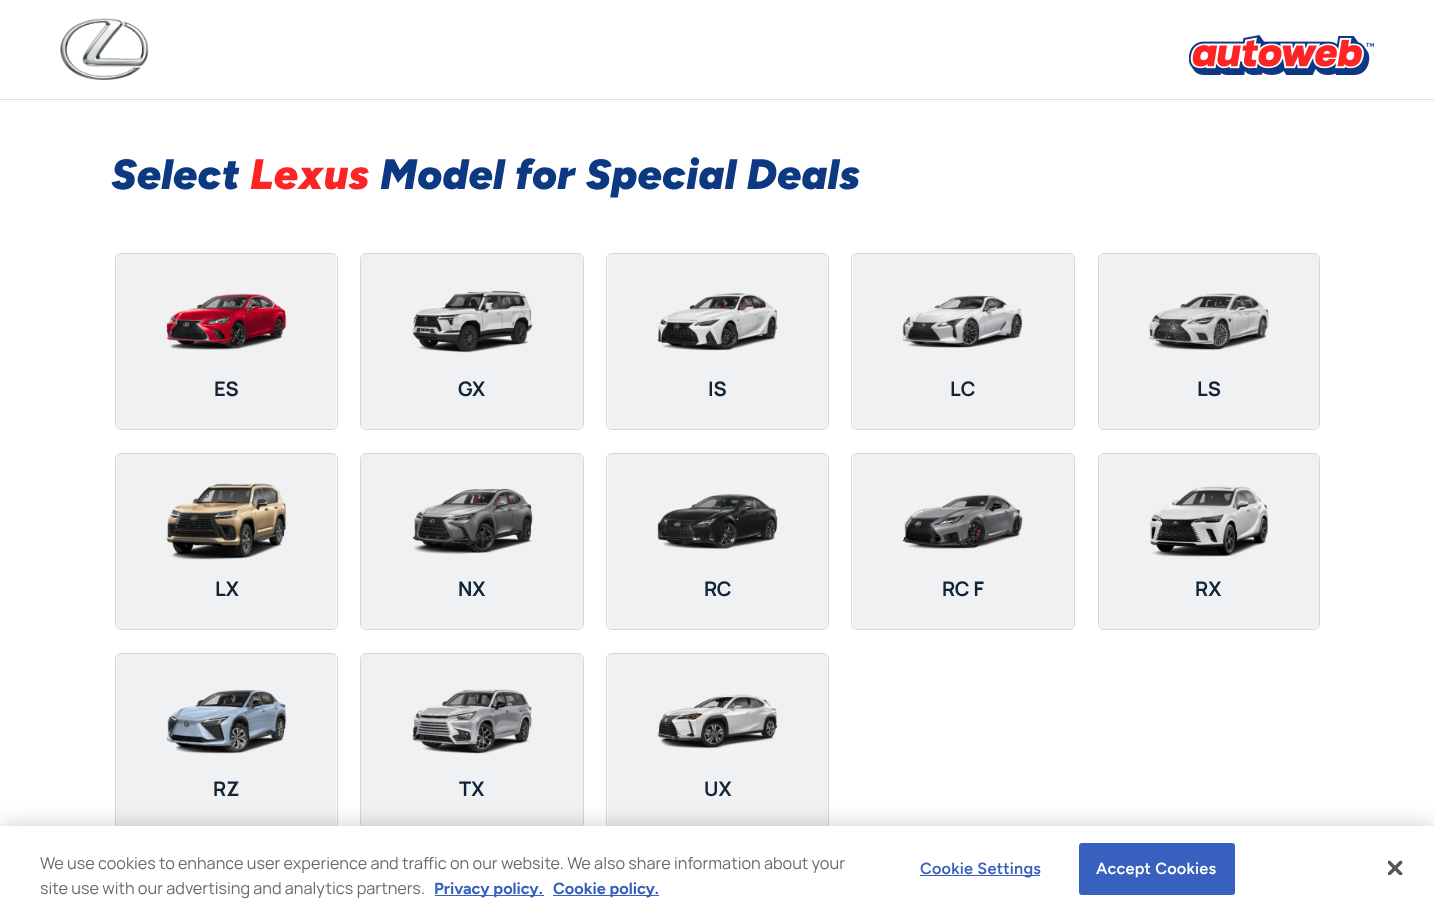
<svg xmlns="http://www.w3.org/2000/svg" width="1434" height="914">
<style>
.a{font:italic 900 42.5px Figtree;letter-spacing:0.3px;fill:#0d3882}
.b{font:italic 900 42.5px Figtree;letter-spacing:0.3px;fill:#fc2424}
.c{font:bold 20px Manrope;fill:#112436}
.d{font:16.25px Manrope;fill:#696969}
.e{font:bold 16.25px Figtree;fill:#3860be}
.f{font:600 16.25px Figtree;letter-spacing:0.2px;fill:#3860be}
.g{font:600 16.25px Figtree;letter-spacing:0.2px;fill:#fff}
</style>
<rect width="100%" height="100%" fill="#fff"/>
<path fill="#e0e0e0" d="M0 99h1434v1H0z"/>
<image href="1.png" x="60" y="18" width="89" height="62"/>
<image href="2.png" x="1189" y="35" width="185" height="40"/>
<rect fill="none" stroke="#d6d6d6" x="115.5" y="253.5" width="222" height="176" rx="5.5"/>
<rect fill="#f0f1f3" x="116" y="254" width="220" height="175" rx="5"/>
<image href="3.png" x="166" y="293" width="121" height="57"/>
<rect fill="none" stroke="#d6d6d6" x="360.5" y="253.5" width="223" height="176" rx="5.5"/>
<rect fill="#f0f1f3" x="361" y="254" width="222" height="175" rx="5"/>
<image href="4.png" x="412" y="290" width="121" height="63"/>
<rect fill="none" stroke="#d6d6d6" x="606.5" y="253.5" width="222" height="176" rx="5.5"/>
<rect fill="#f0f1f3" x="608" y="254" width="220" height="175" rx="5"/>
<image href="5.png" x="657" y="293" width="121" height="58"/>
<rect fill="none" stroke="#d6d6d6" x="851.5" y="253.5" width="223" height="176" rx="5.5"/>
<rect fill="#f0f1f3" x="853" y="254" width="221" height="175" rx="5"/>
<image href="6.png" x="902" y="295" width="121" height="53"/>
<rect fill="none" stroke="#d6d6d6" x="1098.5" y="253.5" width="221" height="176" rx="5.5"/>
<rect fill="#f0f1f3" x="1099" y="254" width="220" height="175" rx="5"/>
<image href="7.png" x="1148" y="293" width="121" height="57"/>
<rect fill="none" stroke="#d6d6d6" x="115.5" y="453.5" width="222" height="176" rx="5.5"/>
<rect fill="#f0f1f3" x="116" y="454" width="220" height="175" rx="5"/>
<image href="8.png" x="166" y="483" width="121" height="77"/>
<rect fill="none" stroke="#d6d6d6" x="360.5" y="453.5" width="223" height="176" rx="5.5"/>
<rect fill="#f0f1f3" x="361" y="454" width="222" height="175" rx="5"/>
<image href="9.png" x="412" y="488" width="121" height="66"/>
<rect fill="none" stroke="#d6d6d6" x="606.5" y="453.5" width="222" height="176" rx="5.5"/>
<rect fill="#f0f1f3" x="608" y="454" width="220" height="175" rx="5"/>
<image href="10.png" x="657" y="494" width="121" height="55"/>
<rect fill="none" stroke="#d6d6d6" x="851.5" y="453.5" width="223" height="176" rx="5.5"/>
<rect fill="#f0f1f3" x="853" y="454" width="221" height="175" rx="5"/>
<image href="11.png" x="902" y="494" width="121" height="55"/>
<rect fill="none" stroke="#d6d6d6" x="1098.5" y="453.5" width="221" height="176" rx="5.5"/>
<rect fill="#f0f1f3" x="1099" y="454" width="220" height="175" rx="5"/>
<image href="12.png" x="1150" y="486" width="119" height="71"/>
<rect fill="none" stroke="#d6d6d6" x="115.5" y="653.5" width="222" height="176" rx="5.5"/>
<rect fill="#f0f1f3" x="116" y="654" width="220" height="175" rx="5"/>
<image href="13.png" x="166" y="690" width="121" height="64"/>
<rect fill="none" stroke="#d6d6d6" x="360.5" y="653.5" width="223" height="176" rx="5.5"/>
<rect fill="#f0f1f3" x="361" y="654" width="222" height="175" rx="5"/>
<image href="14.png" x="412" y="689" width="120" height="65"/>
<rect fill="none" stroke="#d6d6d6" x="606.5" y="653.5" width="222" height="176" rx="5.5"/>
<rect fill="#f0f1f3" x="608" y="654" width="220" height="175" rx="5"/>
<image href="15.png" x="657" y="694" width="121" height="55"/>
<path fill="#00000033" filter="blur(11px)" d="M0 826h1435v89H0z"/>
<path fill="#fff" d="M0 826h1434v88H0z"/>
<path fill="#3860be" d="M435 895h109v1H435z"/>
<path fill="#3860be" d="M553 895h106v1H553z"/>
<path fill="#3860be" d="M920 875h120v1H920z"/>
<rect fill="#3860be" stroke="#3860be" x="1079.5" y="843.5" width="155" height="51" rx="2"/>
<image href="16.png" x="1388" y="860" width="15" height="15"/>
<text class="a" x="111" y="189">Select</text>
<text class="b" x="250" y="189">Lexus</text>
<text class="a" x="380" y="189">Model for Special Deals</text>
<text class="c" x="214" y="396">ES</text>
<text class="c" x="458" y="396">GX</text>
<text class="c" x="708" y="396">IS</text>
<text class="c" x="950" y="396">LC</text>
<text class="c" x="1197" y="396">LS</text>
<text class="c" x="215" y="596">LX</text>
<text class="c" x="458" y="596">NX</text>
<text class="c" x="704" y="596">RC</text>
<text class="c" x="942" y="596">RC F</text>
<text class="c" x="1195" y="596">RX</text>
<text class="c" x="213" y="796">RZ</text>
<text class="c" x="459" y="796">TX</text>
<text class="c" x="704" y="796">UX</text>
<text class="d" x="40" y="869">We use cookies to enhance user experience and traffic on our website. We also share information about your</text>
<text class="d" x="40" y="894">site use with our advertising and analytics partners.</text>
<text class="e" x="434" y="894">Privacy policy.</text>
<text class="e" x="553" y="894">Cookie policy.</text>
<text class="f" x="920" y="874">Cookie Settings</text>
<text class="g" x="1096" y="874">Accept Cookies</text>
</svg>
